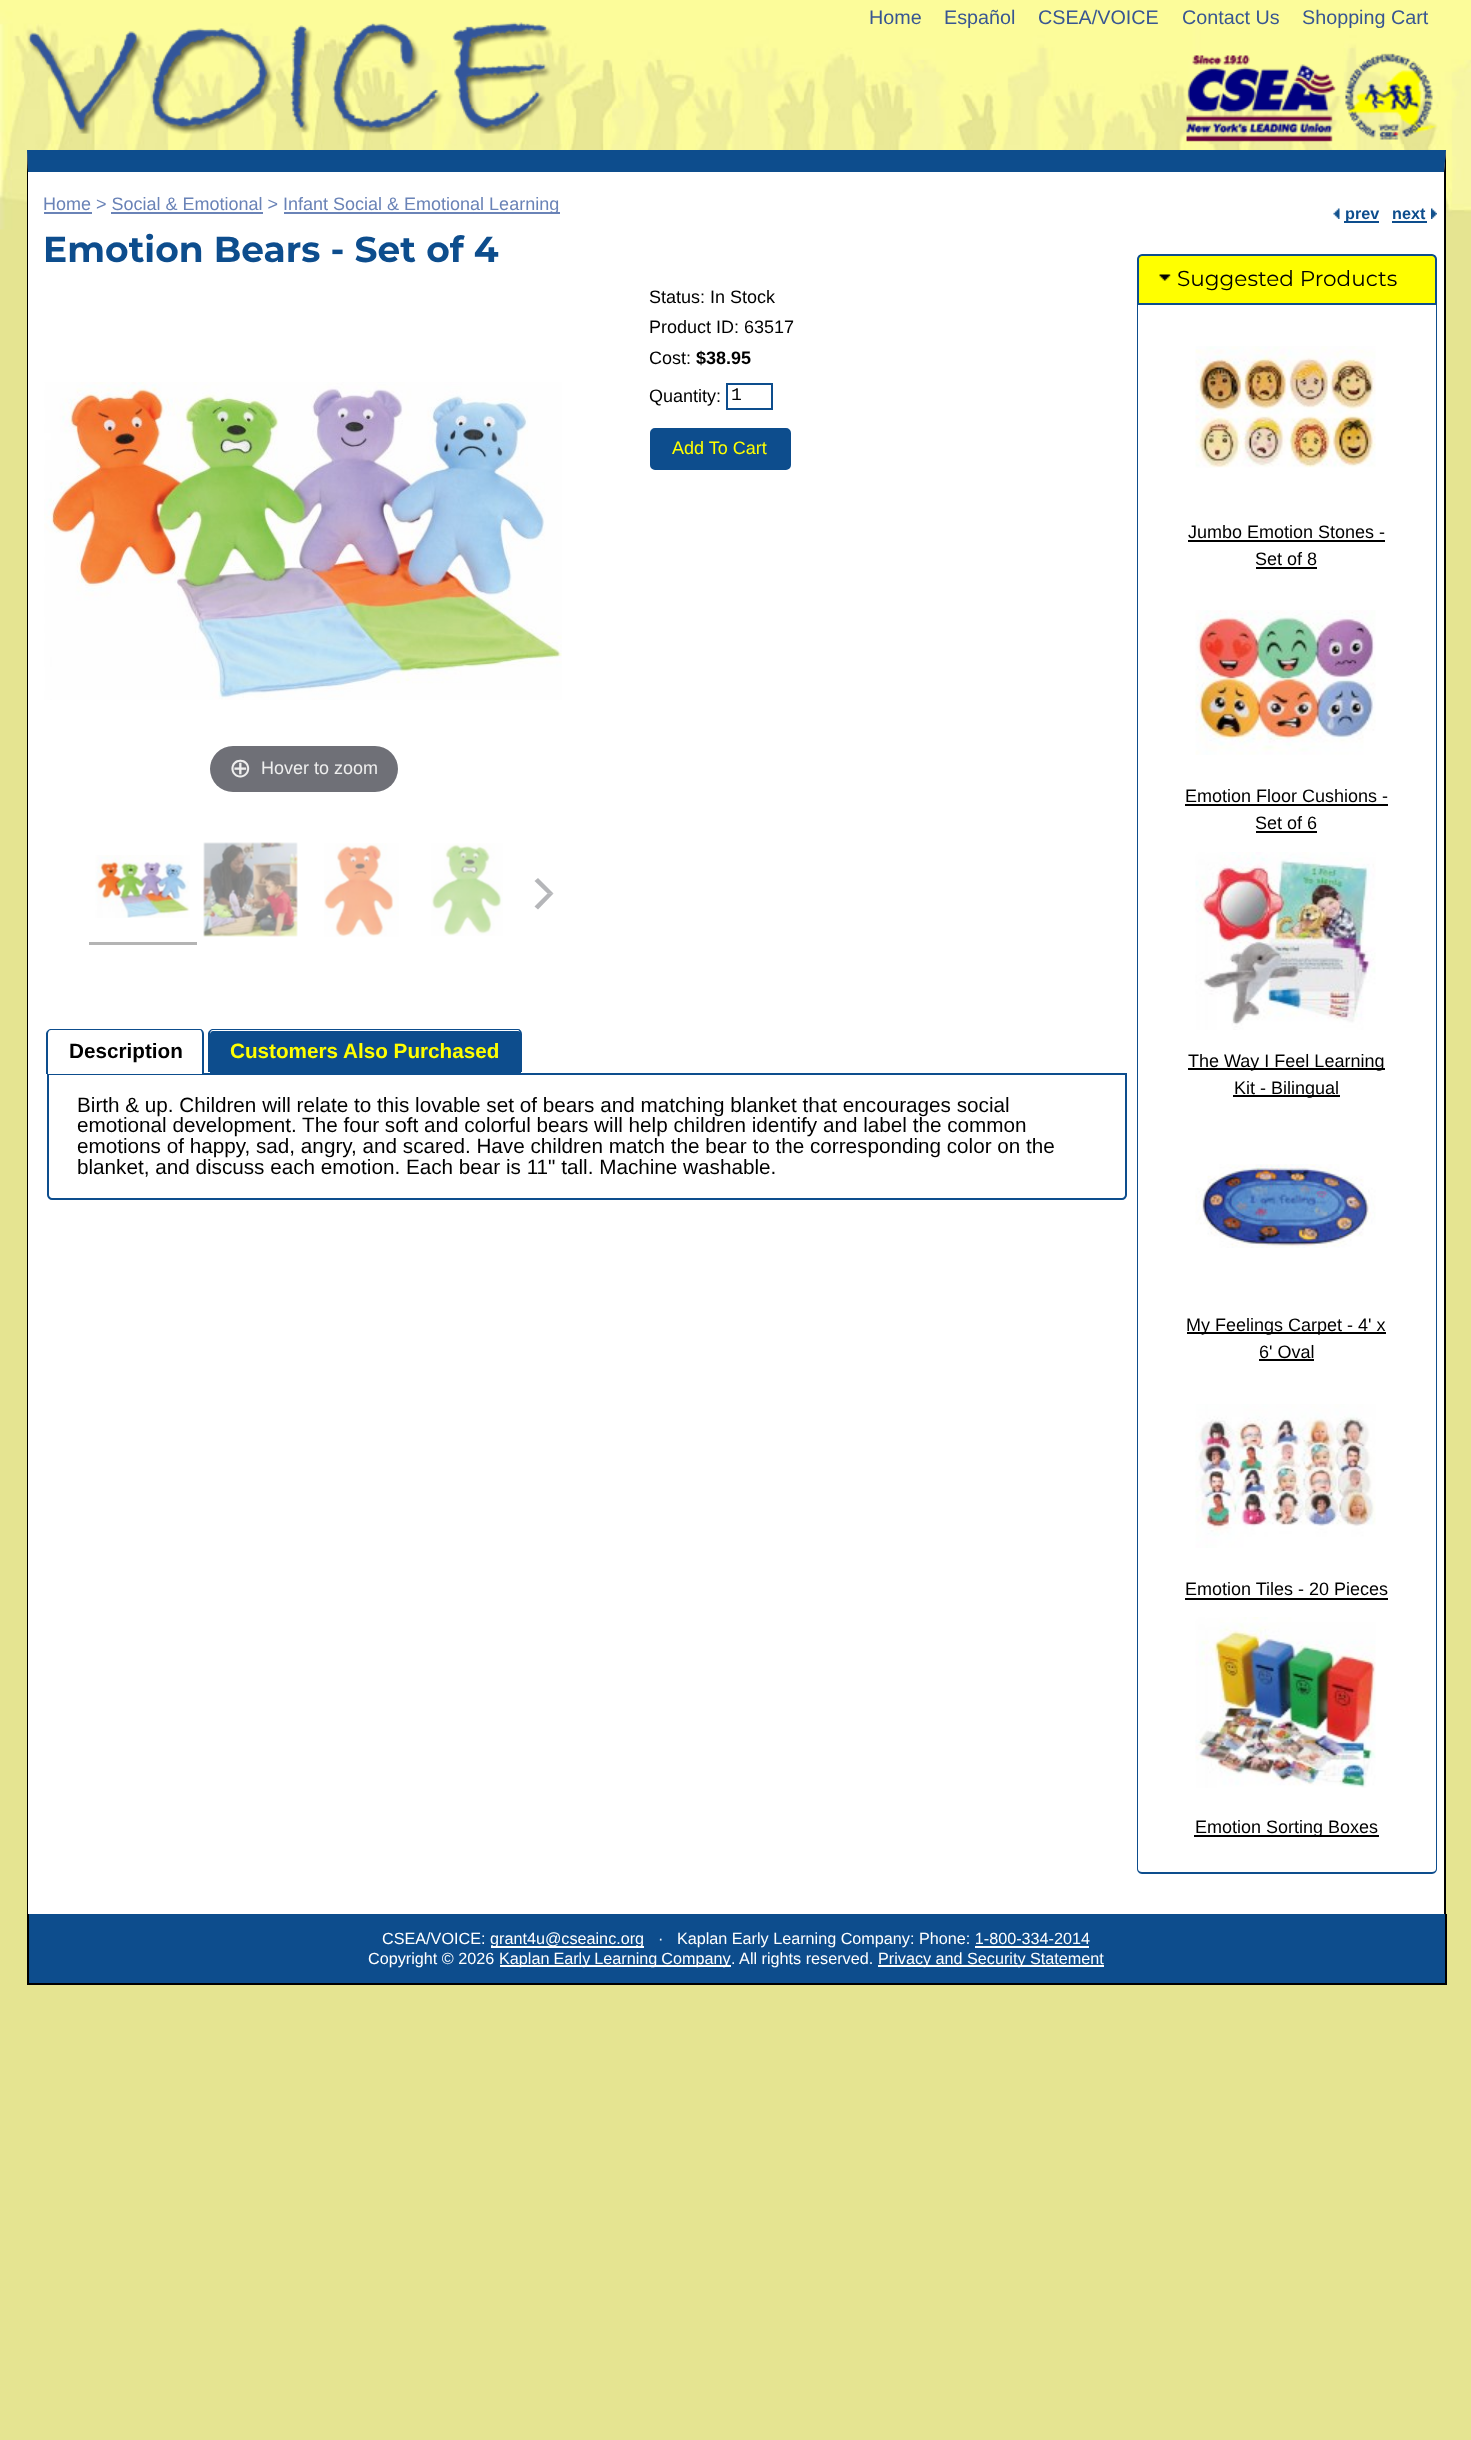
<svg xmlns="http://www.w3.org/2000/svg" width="1471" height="2440">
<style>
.a{font:19.75px Liberation Sans;fill:#385692}
.b{font:18px Liberation Sans;fill:#6a83b7}
.c{font:bold 36px Montserrat;fill:#0d4d8d}
.d{font:18px Liberation Sans;fill:#000}
.e{font:bold 18px Liberation Sans;fill:#000}
.f{font:18px Liberation Mono;fill:#000}
.g{font:18px Liberation Sans;fill:#ff0}
.h{font:27px DejaVu Sans;fill:#eee}
.i{font:18px Liberation Sans;fill:#eee}
.j{font:bold 20.7px Liberation Sans;fill:#000}
.k{font:bold 20.7px Liberation Sans;fill:#ff0}
.l{font:20.7px Liberation Sans;fill:#000}
.m{font:bold 16.2px Liberation Sans;fill:#0d4d8d}
.n{font:21.6px Montserrat;fill:#000}
.o{font:16.2px Liberation Sans;fill:#fff}
</style>
<rect width="100%" height="100%" fill="#e5e491"/>
<image href="1.png" x="0" y="0" width="1471" height="230"/>
<image href="2.png" x="28" y="22" width="524" height="112"/>
<image href="3.png" x="1186" y="53" width="252" height="89"/>
<path fill="#fff" d="M27 150h1419v1764H27z"/>
<path fill="#0d4d8d" d="M27 150h1419l-2 22h-1416z"/>
<path fill="#000" d="M1446 150v1764h-2v-1742z"/>
<path fill="#000" d="M27 1914v-1764l1 22v1742z"/>
<path fill="#6a83b7" d="M44 212h48v2H44z"/>
<path fill="#6a83b7" d="M284 212h276v2H284z"/>
<path fill="#6a83b7" d="M111 212h152v2H111z"/>
<path fill="none" stroke="#0d4d8d" stroke-width="2" d="M727 384h45v25H727z"/>
<rect fill="#0d4d8d" stroke="#0d4d8d" stroke-width="2" x="651" y="429" width="139" height="40" rx="4"/>
<image href="4.png" x="44" y="382" width="518" height="318"/>
<rect fill="#6f7077" x="210" y="746" width="188" height="46" rx="23"/>
<path fill="#b4b4b4" d="M89 942h108v3H89z"/>
<image href="5.png" x="95" y="855" width="95" height="63"/>
<image href="6.png" x="203" y="842" width="95" height="95"/>
<image href="7.png" x="324" y="843" width="75" height="94"/>
<image href="8.png" x="431" y="843" width="72" height="93"/>
<path fill="#b5b6b9" d="M553.5 893.5l-15.5 16l-3.5-3l13-13z"/>
<path fill="#83858b99" d="M538 878l15.5 15.5h-6l-13-12.5z"/>
<path fill="none" stroke="#0d4d8d" stroke-width="2" d="M48 1074h1078v121c0 2-2 4-4 4h-1070c-2 0-4-2-4-4z"/>
<path fill="#fff" d="M51 1031h149c1.5 0 3 1.5 3 3v40h-155v-40c0-1.5 1.5-3 3-3z"/>
<path fill="#0d4d8d" fill-rule="evenodd" d="M51 1029h149c2 0 4 2 4 5v40h-158v-40c0-3 3-5 5-5zm0 1h149c1 0 2 2 2 4v40h-154v-40c0-2 1-4 3-4z"/>
<path fill="#0d4d8d" d="M213 1031h305c1.5 0 3 1.5 3 3v39h-311v-39c0-1.5 1.5-3 3-3z"/>
<path fill="#0d4d8d" fill-rule="evenodd" d="M213 1029h305c2 0 4 2 4 5v38h-314v-38c0-3 3-5 5-5zm0 1h305c1 0 2 2 2 4v38h-310v-38c0-2 1-4 3-4z"/>
<image href="9.png" x="1333" y="208" width="7" height="11"/>
<path fill="#0d4d8d" d="M1344 221h35v2H1344z"/>
<path fill="#0d4d8d" d="M1392 221h35v2H1392z"/>
<image href="10.png" x="1431" y="208" width="6" height="11"/>
<path fill="#0d4d8d" fill-rule="evenodd" d="M1137 304h300v1565c0 2-2 5-5 5h-290c-3 0-5-3-5-5zm1 0h298v1565c0 2-2 3-4 3h-290c-2 0-4-1-4-3z"/>
<path fill="#ff0" stroke="#0d4d8d" stroke-width="2" d="M1142 255h290c2 0 4 2 4 4v45h-298v-45c0-2 2-4 4-4z"/>
<image href="11.png" x="1159" y="274" width="12" height="7"/>
<image href="12.png" x="1195" y="346" width="181" height="122"/>
<path fill="#000" d="M1188 540h197v2H1188z"/>
<path fill="#000" d="M1256 567h61v2H1256z"/>
<image href="13.png" x="1195" y="610" width="181" height="145"/>
<path fill="#000" d="M1185 804h203v2H1185z"/>
<path fill="#000" d="M1256 831h61v2H1256z"/>
<image href="14.png" x="1195" y="852" width="181" height="178"/>
<path fill="#000" d="M1188 1068h197v2H1188z"/>
<path fill="#000" d="M1233 1095h107v2H1233z"/>
<image href="15.png" x="1195" y="1164" width="181" height="84"/>
<path fill="#000" d="M1187 1332h199v2H1187z"/>
<path fill="#000" d="M1259 1359h55v2H1259z"/>
<image href="16.png" x="1195" y="1404" width="181" height="144"/>
<path fill="#000" d="M1185 1598h203v2H1185z"/>
<image href="17.png" x="1195" y="1617" width="181" height="171"/>
<path fill="#000" d="M1194 1835h185v2H1194z"/>
<path fill="#0d4d8d" d="M29 1914h1416v69H29z"/>
<path fill="#000" d="M1445 1914h2v71H1445z"/>
<path fill="#000" d="M27 1983h1419v2H27z"/>
<path fill="#000" d="M27 1914h2v71H27z"/>
<path fill="#fff" d="M491 1946h153v2H491z"/>
<path fill="#fff" d="M975 1946h114v2H975z"/>
<path fill="#fff" d="M500 1965h231v2H500z"/>
<path fill="#fff" d="M878 1965h226v2H878z"/>
<text class="a" x="869" y="24">Home</text>
<text class="a" x="944" y="24">Español</text>
<text class="a" x="1038" y="24">CSEA/VOICE</text>
<text class="a" x="1182" y="24">Contact Us</text>
<text class="a" x="1302" y="24">Shopping Cart</text>
<text class="b" x="43" y="210">Home &gt; Social &amp; Emotional &gt;</text>
<text class="b" x="283" y="210">Infant Social &amp; Emotional Learning</text>
<text class="c" x="43" y="262">Emotion Bears - Set of 4</text>
<text class="d" x="649" y="303">Status: In Stock</text>
<text class="d" x="649" y="333">Product ID: 63517</text>
<text class="d" x="649" y="364">Cost:</text>
<text class="e" x="696" y="364">$38.95</text>
<text class="d" x="649" y="402">Quantity:</text>
<text class="f" x="731" y="400">1</text>
<text class="g" x="672" y="454">Add To Cart</text>
<text class="h" x="229" y="777">⊕</text>
<text class="i" x="261" y="774">Hover to zoom</text>
<text class="j" x="69" y="1058">Description</text>
<text class="k" x="230" y="1058">Customers Also Purchased</text>
<text class="l" x="77" y="1112">Birth &amp; up. Children will relate to this lovable set of bears and matching blanket that encourages social</text>
<text class="l" x="77" y="1132">emotional development. The four soft and colorful bears will help children identify and label the common</text>
<text class="l" x="77" y="1153">emotions of happy, sad, angry, and scared. Have children match the bear to the corresponding color on the</text>
<text class="l" x="77" y="1174">blanket, and discuss each emotion. Each bear is 11" tall. Machine washable.</text>
<text class="m" x="1345" y="219">prev</text>
<text class="m" x="1392" y="219">next</text>
<text class="n" x="1177" y="286">Suggested Products</text>
<text class="d" x="1188" y="538">Jumbo Emotion Stones -</text>
<text class="d" x="1255" y="565">Set of 8</text>
<text class="d" x="1185" y="802">Emotion Floor Cushions -</text>
<text class="d" x="1255" y="829">Set of 6</text>
<text class="d" x="1188" y="1067">The Way I Feel Learning</text>
<text class="d" x="1234" y="1094">Kit - Bilingual</text>
<text class="d" x="1186" y="1331">My Feelings Carpet - 4' x</text>
<text class="d" x="1259" y="1358">6' Oval</text>
<text class="d" x="1185" y="1595">Emotion Tiles - 20 Pieces</text>
<text class="d" x="1195" y="1833">Emotion Sorting Boxes</text>
<text class="o" x="382" y="1944">CSEA/VOICE:</text>
<text class="o" x="490" y="1944">grant4u@cseainc.org</text>
<text class="o" xml:space="preserve" x="658" y="1944">·   Kaplan Early Learning Company: Phone: 1-800-334-2014</text>
<text class="o" x="368" y="1964">Copyright © 2026</text>
<text class="o" x="499" y="1964" word-spacing="-0.5">Kaplan Early Learning Company</text>
<text class="o" x="731" y="1964">. All rights reserved.</text>
<text class="o" x="878" y="1964">Privacy and Security Statement</text>
</svg>
